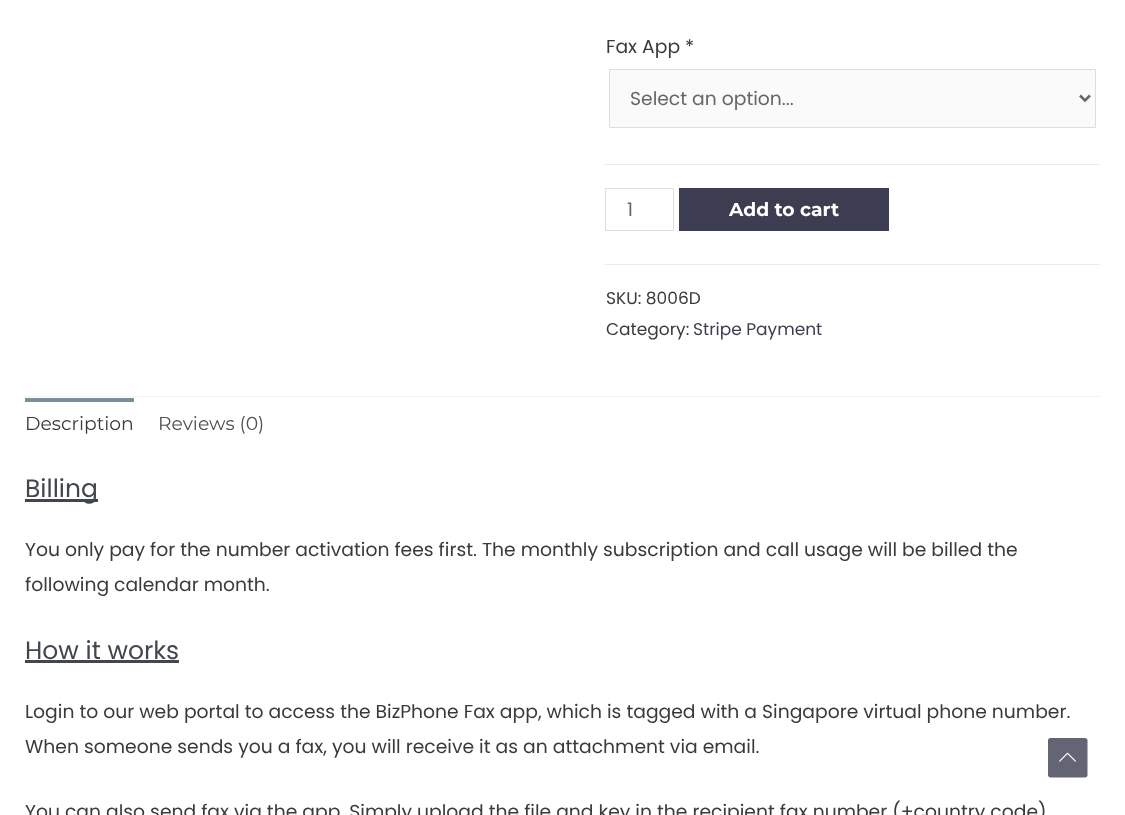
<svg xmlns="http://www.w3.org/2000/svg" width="1125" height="815">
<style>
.a{font:18.75px Poppins;fill:#3a3a3a}
.b{font:18.75px Poppins;fill:#666}
.c{font:bold 18.75px Montserrat;fill:#fff}
.d{font:17px Poppins;fill:#3a3a3a}
.e{font:17px Poppins;fill:#3c3d51}
.f{font:18.75px Montserrat;fill:#3a3a3a}
.g{font:18.75px Montserrat;fill:#515151}
.h{font:25px Poppins;fill:#41474c}
</style>
<rect width="100%" height="100%" fill="#fff"/>
<path fill="#fafafa" stroke="#ddd" d="M609.5 69.5h486v58H609.5z"/>
<path fill="none" stroke="#666" stroke-width="2.5" d="M1080 95.5l5 5l5-5"/>
<path fill="#ebebeb" d="M605 164h495v1H605z"/>
<path fill="none" stroke="#ddd" d="M605.5 188.5h68v42H605.5z"/>
<path fill="#3c3d51" d="M679 188h210v43H679z"/>
<path fill="#ebebeb" d="M605 264h495v1H605z"/>
<path fill="#f2f2f2" d="M25 396h1075v1H25z"/>
<path fill="#78909c" d="M25 398h109v4H25z"/>
<path fill="#41474c" d="M25 499h73v3H25z"/>
<path fill="#41474c" d="M25 660h154v3H25z"/>
<path fill="#636474" d="M1085 777.5h-34.5c-1.5 0-2.5-1-2.5-2.5v-34.5c0-1.5 1-2.5 2.5-2.5h34.5c1.5 0 2.5 1 2.5 2.5v34.5c0 1.5-1 2.5-2.5 2.5z"/>
<image href="1.png" x="1059" y="752" width="17" height="10"/>
<text class="a" x="606" y="53">Fax App *</text>
<text class="b" x="630" y="105">Select an option...</text>
<text class="b" x="627" y="216">1</text>
<text class="c" x="729" y="216">Add to cart</text>
<text class="d" x="606" y="304">SKU: 8006D</text>
<text class="d" x="606" y="335">Category:</text>
<text class="e" x="693" y="335">Stripe Payment</text>
<text class="f" x="25" y="430">Description</text>
<text class="g" x="158" y="430">Reviews (0)</text>
<text class="h" x="25" y="497">Billing</text>
<text class="a" x="25" y="556">You only pay for the number activation fees first. The monthly subscription and call usage will be billed the</text>
<text class="a" x="25" y="591">following calendar month.</text>
<text class="h" x="25" y="659">How it works</text>
<text class="a" x="25" y="718">Login to our web portal to access the BizPhone Fax app, which is tagged with a Singapore virtual phone number.</text>
<text class="a" x="25" y="753">When someone sends you a fax, you will receive it as an attachment via email.</text>
<text class="a" x="25" y="818">You can also send fax via the app. Simply upload the file and key in the recipient fax number (+country code)</text>
</svg>
